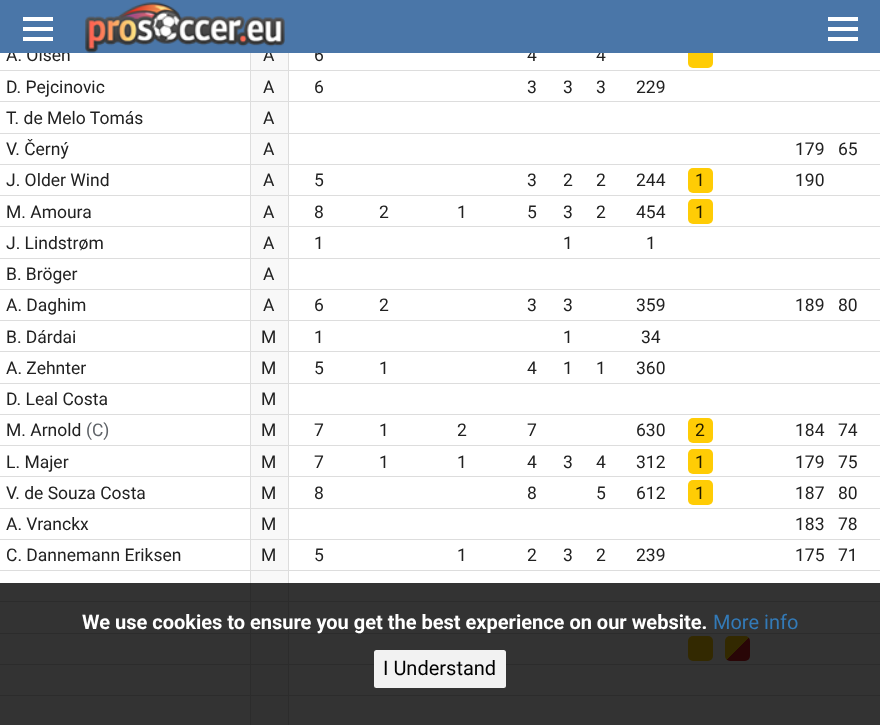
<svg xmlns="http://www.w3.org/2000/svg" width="880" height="725">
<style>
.a{font:17.5px Roboto;fill:#212121}
.b{font:17.5px Roboto;fill:#211b01}
.c{font:17.5px Roboto;fill:#5f6368}
.d{font:bold 20px Roboto;fill:#fff}
.e{font:20px Roboto;fill:#337ab7}
.f{font:20px Roboto;fill:#000}
</style>
<defs>
<linearGradient id="g1" gradientUnits="userSpaceOnUse" x1="725" y1="636" x2="750" y2="661"><stop offset="0.5" stop-color="#ffcc05"/><stop offset="0.5" stop-color="#ca2027"/></linearGradient>
</defs>
<rect width="100%" height="100%" fill="#fff"/>
<path fill="#ddd" d="M0 70h880v1H0z"/>
<path fill="#f8f8f8" d="M251 53h37v17H251z"/>
<rect fill="#ffcc05" x="688" y="43" width="25" height="25" rx="5"/>
<path fill="#f8f8f8" d="M251 696h37v29H251z"/>
<path fill="#f8f8f8" d="M251 71h37v62H251z"/>
<path fill="#ddd" d="M0 101h880v1H0z"/>
<path fill="#ddd" d="M0 133h880v1H0z"/>
<path fill="#ddd" d="M0 164h880v1H0z"/>
<path fill="#ddd" d="M0 195h880v1H0z"/>
<path fill="#f8f8f8" d="M251 196h37v62H251z"/>
<path fill="#ddd" d="M0 226h880v1H0z"/>
<path fill="#ddd" d="M0 258h880v1H0z"/>
<path fill="#ddd" d="M0 289h880v1H0z"/>
<path fill="#ddd" d="M0 320h880v1H0z"/>
<path fill="#f8f8f8" d="M251 321h37v62H251z"/>
<path fill="#ddd" d="M0 351h880v1H0z"/>
<path fill="#ddd" d="M0 383h880v1H0z"/>
<path fill="#ddd" d="M0 414h880v1H0z"/>
<path fill="#ddd" d="M0 445h880v1H0z"/>
<path fill="#f8f8f8" d="M251 446h37v62H251z"/>
<path fill="#ddd" d="M0 476h880v1H0z"/>
<path fill="#ddd" d="M0 508h880v1H0z"/>
<path fill="#ddd" d="M0 539h880v1H0z"/>
<path fill="#ddd" d="M0 570h880v1H0z"/>
<path fill="#f8f8f8" d="M251 571h37v62H251z"/>
<path fill="#ddd" d="M0 601h880v1H0z"/>
<path fill="#ddd" d="M0 633h880v1H0z"/>
<path fill="#ddd" d="M0 664h880v1H0z"/>
<path fill="#ddd" d="M0 695h880v1H0z"/>
<path fill="#ddd" d="M288 53h1v672H288z"/>
<path fill="#ddd" d="M250 53h1v672H250z"/>
<path fill="#f8f8f8" d="M251 134h37v30H251z"/>
<path fill="#f8f8f8" d="M251 165h37v30H251z"/>
<rect fill="#ffcc05" x="688" y="168" width="25" height="25" rx="5"/>
<rect fill="#ffcc05" x="688" y="199" width="25" height="25" rx="5"/>
<path fill="#f8f8f8" d="M251 259h37v30H251z"/>
<path fill="#f8f8f8" d="M251 290h37v30H251z"/>
<path fill="#f8f8f8" d="M251 384h37v30H251z"/>
<path fill="#f8f8f8" d="M251 415h37v30H251z"/>
<rect fill="#ffcc05" x="688" y="418" width="25" height="25" rx="5"/>
<rect fill="#ffcc05" x="688" y="449" width="25" height="25" rx="5"/>
<rect fill="#ffcc05" x="688" y="480" width="25" height="25" rx="5"/>
<path fill="#f8f8f8" d="M251 509h37v30H251z"/>
<path fill="#f8f8f8" d="M251 540h37v30H251z"/>
<path fill="#f8f8f8" d="M251 634h37v30H251z"/>
<rect fill="#ffcc05" x="688" y="636" width="25" height="25" rx="5"/>
<rect fill="url(#g1)" x="725" y="636" width="25" height="25" rx="5"/>
<path fill="#f8f8f8" d="M251 665h37v30H251z"/>
<path fill="#000000cc" d="M0 583h880v142H0z"/>
<rect fill="#f2f2f2" x="374" y="650" width="132" height="38" rx="2.5"/>
<text class="a" x="6" y="61">A. Olsen</text>
<text class="a" x="263" y="61">A</text>
<text class="a" x="314" y="61">6</text>
<text class="a" x="527" y="61">4</text>
<text class="a" x="596" y="61">4</text>
<path fill="#4a76a8" d="M0 0h880v53H0z"/>
<path fill="#fff" d="M828 37h30v4H828z"/>
<path fill="#fff" d="M828 27h30v4H828z"/>
<path fill="#fff" d="M828 17h30v4H828z"/>
<path fill="#fff" d="M23 37h30v4H23z"/>
<path fill="#fff" d="M23 27h30v4H23z"/>
<path fill="#fff" d="M23 17h30v4H23z"/>
<image href="1.png" x="85" y="2" width="200" height="51"/>
<text class="a" x="6" y="93">D. Pejcinovic</text>
<text class="a" x="263" y="93">A</text>
<text class="a" x="314" y="93">6</text>
<text class="a" x="527" y="93">3</text>
<text class="a" x="563" y="93">3</text>
<text class="a" x="596" y="93">3</text>
<text class="a" x="636" y="93">229</text>
<text class="a" x="6" y="124">T. de Melo Tomás</text>
<text class="a" x="263" y="124">A</text>
<text class="a" x="6" y="155">V. Černý</text>
<text class="a" x="263" y="155">A</text>
<text class="a" x="795" y="155">179</text>
<text class="a" x="838" y="155">65</text>
<text class="a" x="6" y="186">J. Older Wind</text>
<text class="a" x="263" y="186">A</text>
<text class="a" x="314" y="186">5</text>
<text class="a" x="527" y="186">3</text>
<text class="a" x="563" y="186">2</text>
<text class="a" x="596" y="186">2</text>
<text class="a" x="636" y="186">244</text>
<text class="b" x="695" y="186">1</text>
<text class="a" x="795" y="186">190</text>
<text class="a" x="6" y="218">M. Amoura</text>
<text class="a" x="263" y="218">A</text>
<text class="a" x="314" y="218">8</text>
<text class="a" x="379" y="218">2</text>
<text class="a" x="457" y="218">1</text>
<text class="a" x="527" y="218">5</text>
<text class="a" x="563" y="218">3</text>
<text class="a" x="596" y="218">2</text>
<text class="a" x="636" y="218">454</text>
<text class="b" x="695" y="218">1</text>
<text class="a" x="6" y="249">J. Lindstrøm</text>
<text class="a" x="263" y="249">A</text>
<text class="a" x="314" y="249">1</text>
<text class="a" x="563" y="249">1</text>
<text class="a" x="646" y="249">1</text>
<text class="a" x="6" y="280">B. Bröger</text>
<text class="a" x="263" y="280">A</text>
<text class="a" x="6" y="311">A. Daghim</text>
<text class="a" x="263" y="311">A</text>
<text class="a" x="314" y="311">6</text>
<text class="a" x="379" y="311">2</text>
<text class="a" x="527" y="311">3</text>
<text class="a" x="563" y="311">3</text>
<text class="a" x="636" y="311">359</text>
<text class="a" x="795" y="311">189</text>
<text class="a" x="838" y="311">80</text>
<text class="a" x="6" y="343">B. Dárdai</text>
<text class="a" x="261" y="343">M</text>
<text class="a" x="314" y="343">1</text>
<text class="a" x="563" y="343">1</text>
<text class="a" x="641" y="343">34</text>
<text class="a" x="6" y="374">A. Zehnter</text>
<text class="a" x="261" y="374">M</text>
<text class="a" x="314" y="374">5</text>
<text class="a" x="379" y="374">1</text>
<text class="a" x="527" y="374">4</text>
<text class="a" x="563" y="374">1</text>
<text class="a" x="596" y="374">1</text>
<text class="a" x="636" y="374">360</text>
<text class="a" x="6" y="405">D. Leal Costa</text>
<text class="a" x="261" y="405">M</text>
<text class="a" x="6" y="436">M. Arnold</text>
<text class="c" x="86" y="436">(C)</text>
<text class="a" x="261" y="436">M</text>
<text class="a" x="314" y="436">7</text>
<text class="a" x="379" y="436">1</text>
<text class="a" x="457" y="436">2</text>
<text class="a" x="527" y="436">7</text>
<text class="a" x="636" y="436">630</text>
<text class="b" x="695" y="436">2</text>
<text class="a" x="795" y="436">184</text>
<text class="a" x="838" y="436">74</text>
<text class="a" x="6" y="468">L. Majer</text>
<text class="a" x="261" y="468">M</text>
<text class="a" x="314" y="468">7</text>
<text class="a" x="379" y="468">1</text>
<text class="a" x="457" y="468">1</text>
<text class="a" x="527" y="468">4</text>
<text class="a" x="563" y="468">3</text>
<text class="a" x="596" y="468">4</text>
<text class="a" x="636" y="468">312</text>
<text class="b" x="695" y="468">1</text>
<text class="a" x="795" y="468">179</text>
<text class="a" x="838" y="468">75</text>
<text class="a" x="6" y="499">V. de Souza Costa</text>
<text class="a" x="261" y="499">M</text>
<text class="a" x="314" y="499">8</text>
<text class="a" x="527" y="499">8</text>
<text class="a" x="596" y="499">5</text>
<text class="a" x="636" y="499">612</text>
<text class="b" x="695" y="499">1</text>
<text class="a" x="795" y="499">187</text>
<text class="a" x="838" y="499">80</text>
<text class="a" x="6" y="530">A. Vranckx</text>
<text class="a" x="261" y="530">M</text>
<text class="a" x="795" y="530">183</text>
<text class="a" x="838" y="530">78</text>
<text class="a" x="6" y="561">C. Dannemann Eriksen</text>
<text class="a" x="261" y="561">M</text>
<text class="a" x="314" y="561">5</text>
<text class="a" x="457" y="561">1</text>
<text class="a" x="527" y="561">2</text>
<text class="a" x="563" y="561">3</text>
<text class="a" x="596" y="561">2</text>
<text class="a" x="636" y="561">239</text>
<text class="a" x="795" y="561">175</text>
<text class="a" x="838" y="561">71</text>
<text class="d" x="82" y="629">We use cookies to ensure you get the best experience on our website.</text>
<text class="e" x="713" y="629">More info</text>
<text class="f" x="383" y="675">I Understand</text>
</svg>
